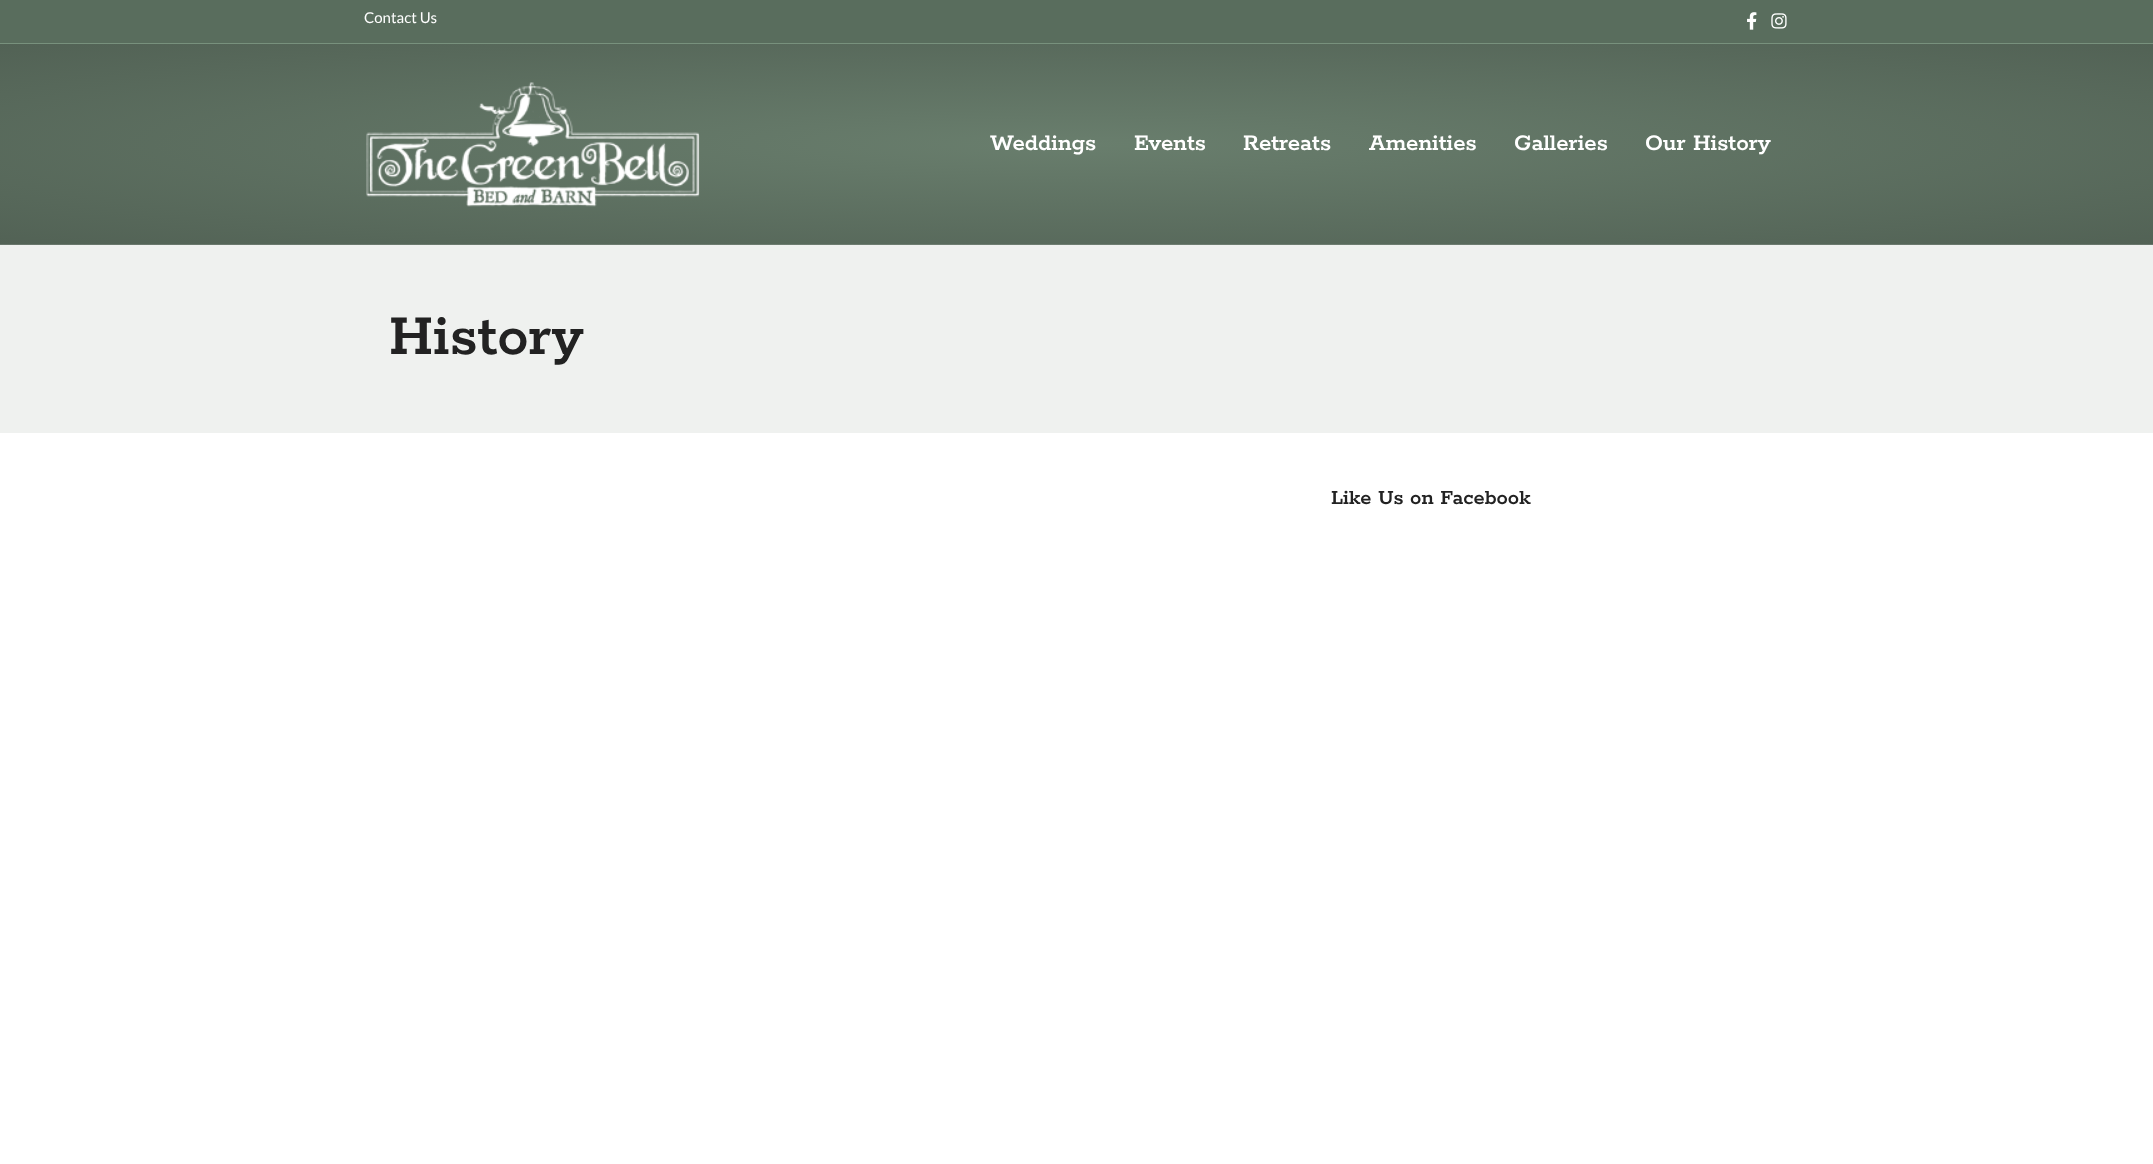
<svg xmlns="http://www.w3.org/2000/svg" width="2153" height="1164">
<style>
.a{font:15px Lato;fill:#fff}
.b{font:600 25px Rokkitt;fill:#fff}
.c{font:600 62.5px Rokkitt;fill:#222}
.d{font:600 22.5px Rokkitt;fill:#222}
</style>
<defs>
<radialGradient id="g1" gradientUnits="userSpaceOnUse" cx="0" cy="0" r="1" gradientTransform="matrix(1523 0 0 142 1077 144)"><stop offset="0" stop-color="#697e6d"/><stop offset="1" stop-color="#526255"/></radialGradient>
<radialGradient id="g2" gradientUnits="userSpaceOnUse" cx="0" cy="0" r="1" gradientTransform="matrix(1523 0 0 142 1077 144)"><stop offset="0" stop-color="#7d8f80"/><stop offset="1" stop-color="#68766b"/></radialGradient>
</defs>
<rect width="100%" height="100%" fill="#fff"/>
<path fill="#596d5d" d="M0 0h2153v43H0z"/>
<path fill="#78917d" d="M0 43h2153v1H0z"/>
<image href="1.png" x="1747" y="12" width="10" height="18"/>
<image href="2.png" x="1771" y="13" width="16" height="16"/>
<path fill="url(#g1)" d="M0 44h2153v200H0z"/>
<path fill="url(#g2)" d="M0 244h2153v1H0z"/>
<image href="3.png" x="366" y="82" width="334" height="125"/>
<path fill="#eff1ef" d="M0 245h2153v188H0z"/>
<text class="a" x="364" y="23">Contact Us</text>
<text class="b" x="990" y="150">Weddings</text>
<text class="b" x="1134" y="150">Events</text>
<text class="b" x="1243" y="150">Retreats</text>
<text class="b" x="1369" y="150">Amenities</text>
<text class="b" x="1514" y="150">Galleries</text>
<text class="b" x="1645" y="150">Our History</text>
<text class="c" x="389" y="354">History</text>
<text class="d" x="1331" y="504">Like Us on Facebook</text>
</svg>
